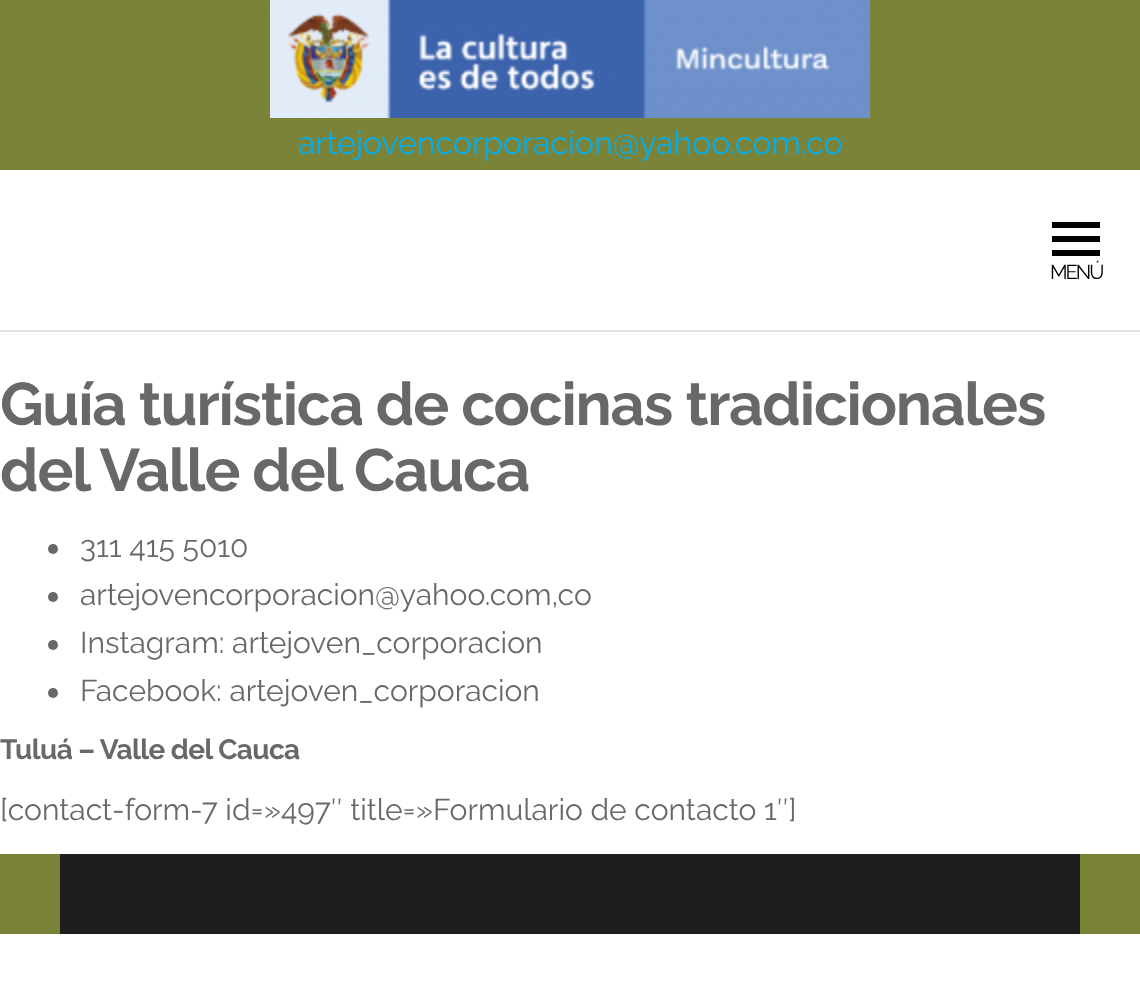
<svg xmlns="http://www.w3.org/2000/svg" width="1140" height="987">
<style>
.a{font:32px Raleway;fill:#00aff2}
.b{font:20px Raleway;letter-spacing:-2px;fill:#000}
.c{font:bold 60px Raleway;letter-spacing:-1.2px;fill:#686868}
.d{font:30px Raleway;fill:#686868}
.e{font:bold 28px Raleway;letter-spacing:-0.6px;fill:#686868}
</style>
<rect width="100%" height="100%" fill="#fff"/>
<path fill="#7b8338" d="M0 0h1140v170H0z"/>
<image href="1.png" x="270" y="0" width="600" height="118"/>
<path fill="#e2e2e2" d="M0 330h1140v2H0z"/>
<path fill="#000" d="M1052 222h48v6H1052z"/>
<path fill="#000" d="M1052 236h48v6H1052z"/>
<path fill="#000" d="M1052 250h48v6H1052z"/>
<circle fill="#686868" cx="53" cy="549" r="5"/>
<circle fill="#686868" cx="53" cy="597" r="5"/>
<circle fill="#686868" cx="53" cy="645" r="5"/>
<circle fill="#686868" cx="53" cy="693" r="5"/>
<path fill="#7b8338" d="M0 854h1140v80H0z"/>
<path fill="#1e1e1e" d="M60 854h1020v80H60z"/>
<text class="a" x="298" y="154">artejovencorporacion@yahoo.com.co</text>
<text class="b" x="1050" y="279">MENÚ</text>
<text class="c" x="0" y="425">Guía turística de cocinas tradicionales</text>
<text class="c" x="0" y="491">del Valle del Cauca</text>
<text class="d" x="80" y="557">311 415 5010</text>
<text class="d" x="80" y="605">artejovencorporacion@yahoo.com,co</text>
<text class="d" x="80" y="653">Instagram: artejoven_corporacion</text>
<text class="d" x="80" y="701">Facebook: artejoven_corporacion</text>
<text class="e" x="0" y="759">Tuluá – Valle del Cauca</text>
<text class="d" x="0" y="820">[contact-form-7 id=»497″ title=»Formulario de contacto 1″]</text>
</svg>
